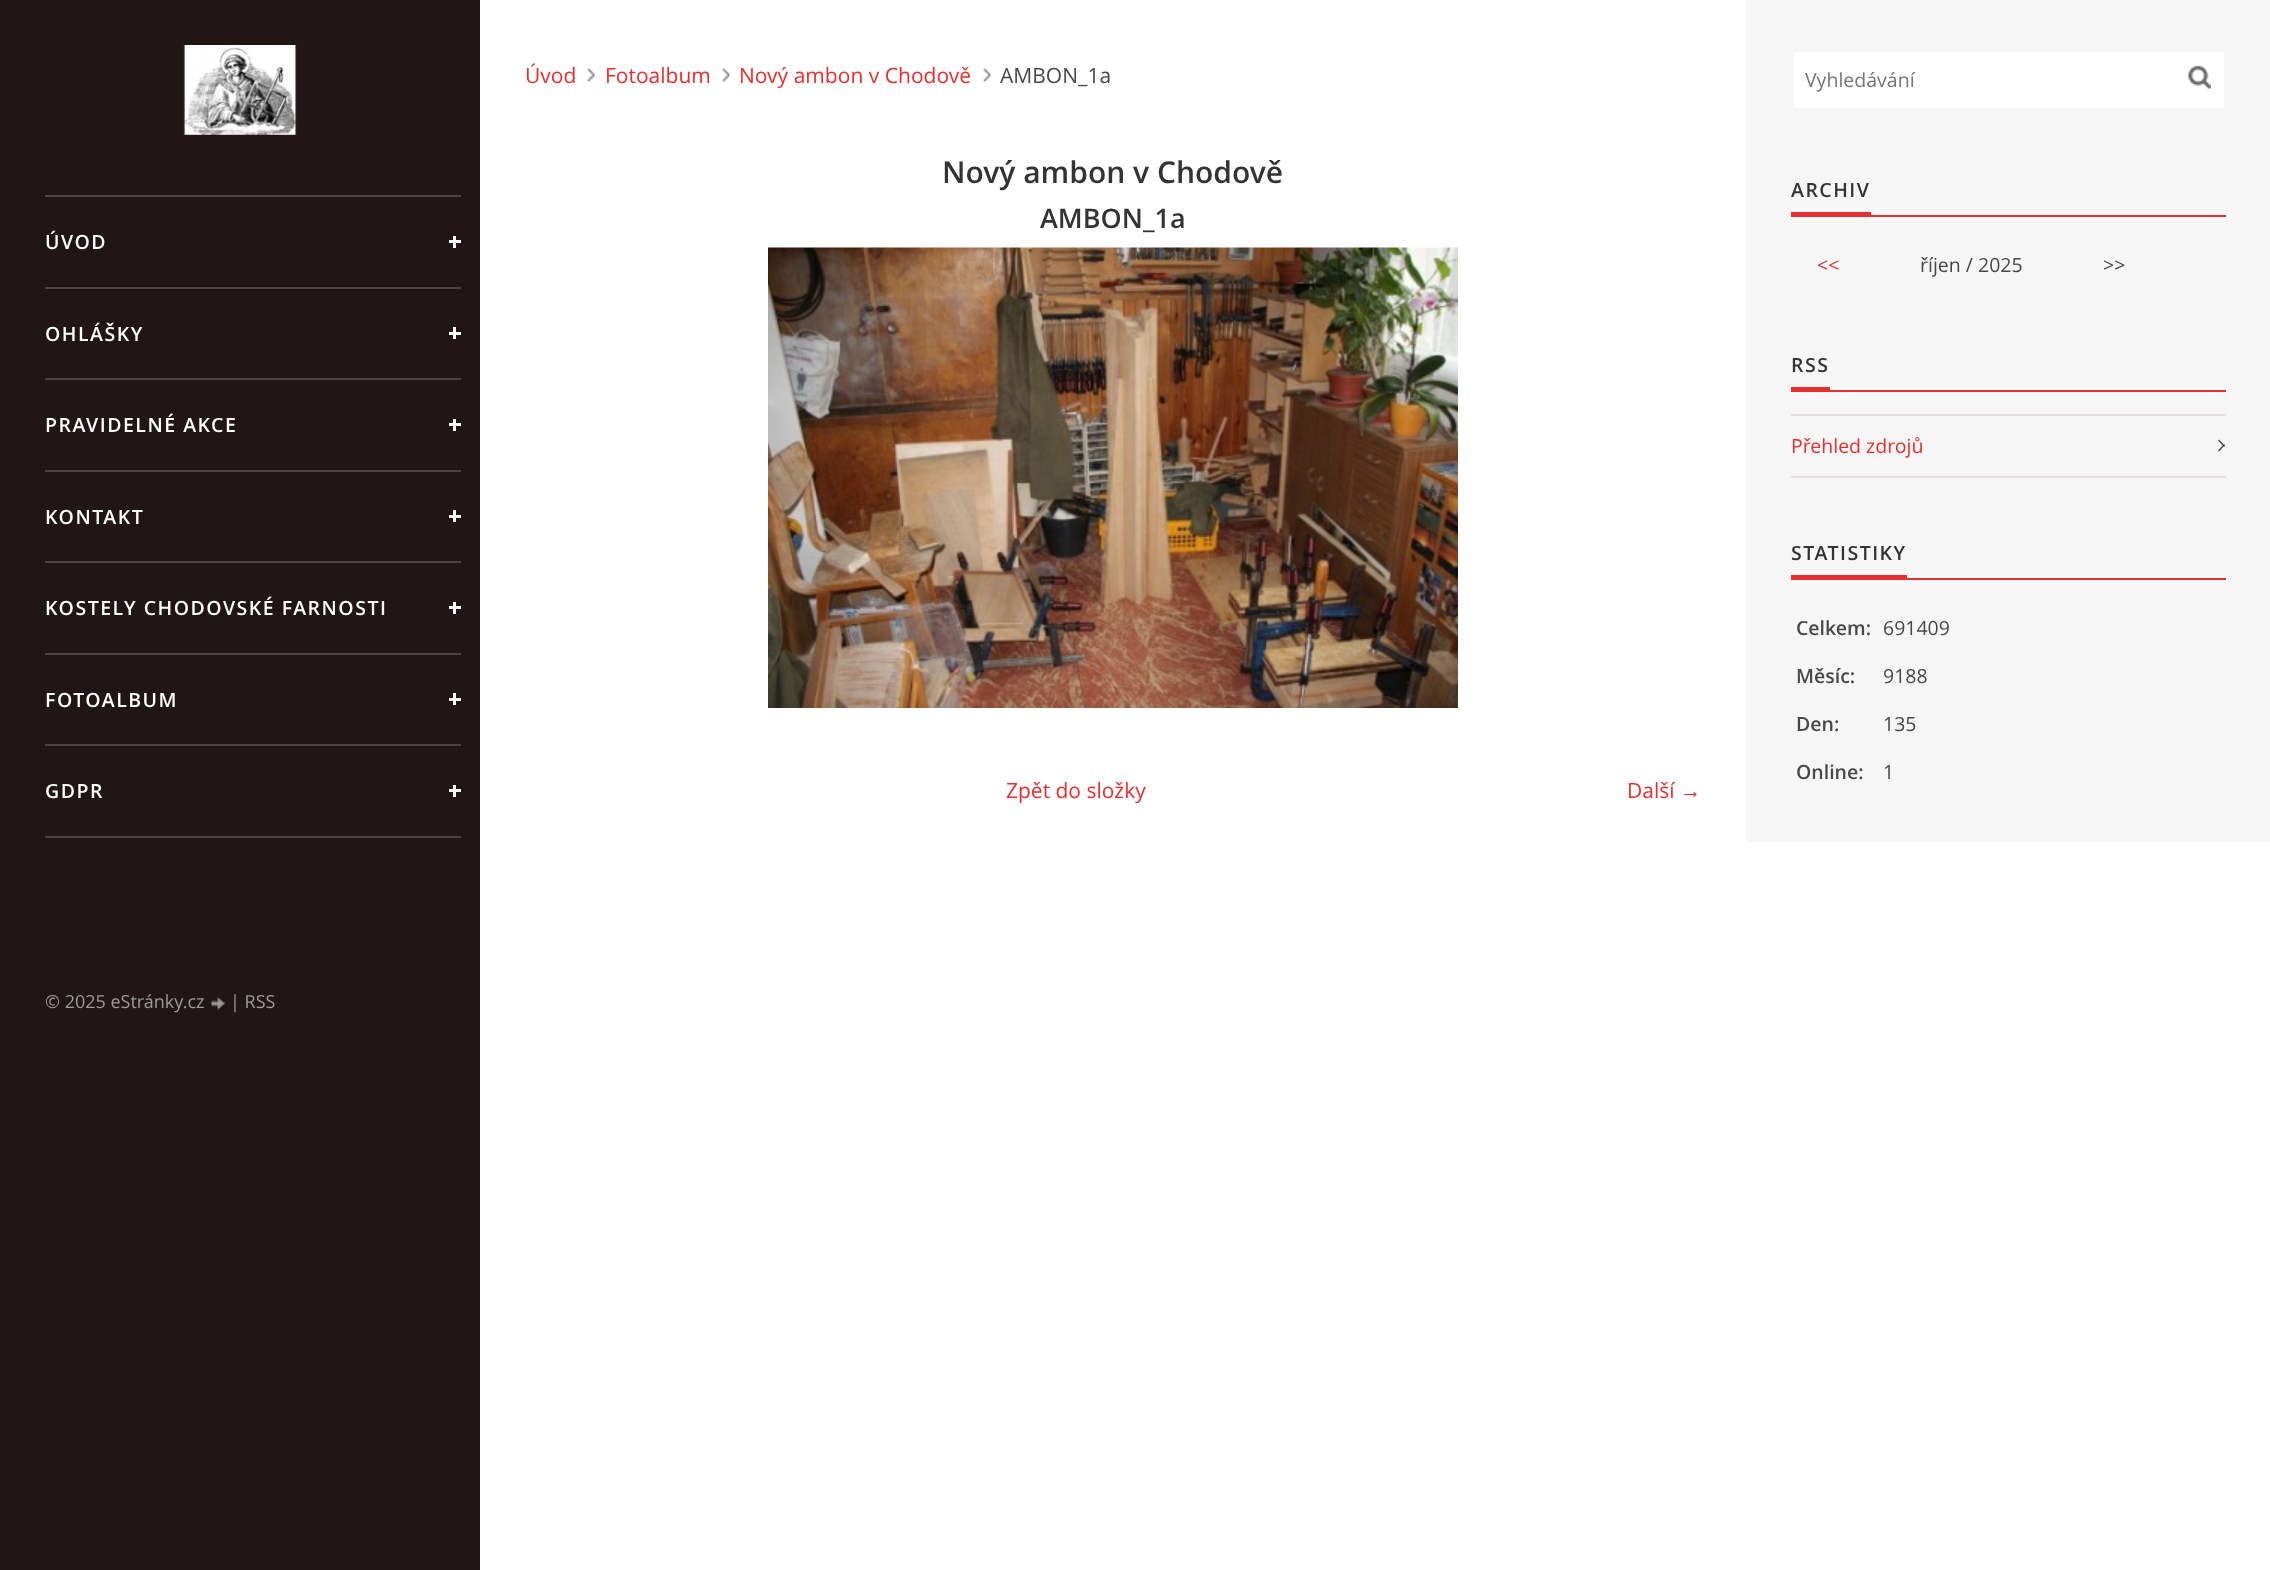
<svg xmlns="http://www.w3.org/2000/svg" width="2270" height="1570">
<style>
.a{font:600 19.5px Open Sans;letter-spacing:1.5px;fill:#fff}
.b{font:18px Open Sans;fill:#9c9c9c}
.c{font:21px Open Sans;fill:#e62f2f}
.d{font:21px Open Sans;fill:#484848}
.e{font:600 30px Open Sans;fill:#333}
.f{font:600 27px Open Sans;fill:#333}
.g{font:21px Liberation Serif;fill:#e62f2f}
.h{font:19.5px Open Sans;fill:#757575}
.i{font:600 19.5px Open Sans;letter-spacing:1.5px;fill:#333}
.j{font:19.5px Open Sans;fill:#e62f2f}
.k{font:19.5px Open Sans;fill:#484848}
.l{font:600 19.5px Open Sans;fill:#484848}
</style>
<rect width="100%" height="100%" fill="#fff"/>
<path fill="#211515" d="M0 0h480v1570H0z"/>
<image href="1.png" x="183" y="45" width="114" height="90"/>
<path fill="#4d4444" d="M45 195h416v2H45z"/>
<path fill="#fff" d="M449 240h12v3H449z"/>
<path fill="#fff" d="M453 236h3v12H453z"/>
<path fill="#4d4444" d="M45 287h416v2H45z"/>
<path fill="#fff" d="M449 332h12v3H449z"/>
<path fill="#fff" d="M453 327h3v12H453z"/>
<path fill="#4d4444" d="M45 378h416v2H45z"/>
<path fill="#fff" d="M449 423h12v3H449z"/>
<path fill="#fff" d="M453 419h3v12H453z"/>
<path fill="#4d4444" d="M45 470h416v2H45z"/>
<path fill="#fff" d="M449 515h12v3H449z"/>
<path fill="#fff" d="M453 510h3v12H453z"/>
<path fill="#4d4444" d="M45 561h416v2H45z"/>
<path fill="#fff" d="M449 606h12v3H449z"/>
<path fill="#fff" d="M453 602h3v12H453z"/>
<path fill="#4d4444" d="M45 653h416v2H45z"/>
<path fill="#fff" d="M449 698h12v3H449z"/>
<path fill="#fff" d="M453 693h3v12H453z"/>
<path fill="#4d4444" d="M45 744h416v2H45z"/>
<path fill="#4d4444" d="M45 836h416v2H45z"/>
<path fill="#fff" d="M449 789h12v3H449z"/>
<path fill="#fff" d="M453 785h3v12H453z"/>
<image href="2.png" x="211" y="997" width="15" height="13"/>
<image href="3.png" x="586" y="67" width="10" height="16"/>
<image href="3.png" x="721" y="67" width="10" height="16"/>
<image href="4.png" x="982" y="67" width="10" height="16"/>
<image href="5.png" x="768" y="247" width="690" height="461"/>
<path fill="#f6f6f6" d="M1746 0h524v842H1746z"/>
<path fill="#fff" d="M1793 52h431v56H1793z"/>
<image href="6.png" x="2188" y="65" width="23" height="24"/>
<path fill="#e62f2f" d="M1791 212h80v3H1791z"/>
<path fill="#e62f2f" d="M1791 215h435v2H1791z"/>
<path fill="#e62f2f" d="M1791 387h39v3H1791z"/>
<path fill="#e62f2f" d="M1791 390h435v2H1791z"/>
<path fill="#e8dfdf" d="M1791 414h435v2H1791z"/>
<path fill="#e8dfdf" d="M1791 476h435v2H1791z"/>
<path fill="#484848" d="M2219 439.5l6 6.5l-1 1l-6-6.5z"/>
<path fill="#484848" d="M2218 450.5l6-6.5l1 1l-6 6.5z"/>
<path fill="#e62f2f" d="M1791 575h116v3H1791z"/>
<path fill="#e62f2f" d="M1791 578h435v2H1791z"/>
<text class="a" x="45" y="249">ÚVOD</text>
<text class="a" x="45" y="341">OHLÁŠKY</text>
<text class="a" x="45" y="432">PRAVIDELNÉ AKCE</text>
<text class="a" x="45" y="524">KONTAKT</text>
<text class="a" x="45" y="615">KOSTELY CHODOVSKÉ FARNOSTI</text>
<text class="a" x="45" y="707">FOTOALBUM</text>
<text class="a" x="45" y="798">GDPR</text>
<text class="b" x="45" y="1008">© 2025 eStránky.cz</text>
<text class="b" x="230" y="1008">| RSS</text>
<text class="c" x="525" y="83">Úvod</text>
<text class="c" x="605" y="83">Fotoalbum</text>
<text class="c" x="739" y="83">Nový ambon v Chodově</text>
<text class="d" x="1000" y="83">AMBON_1a</text>
<text class="e" x="942" y="183">Nový ambon v Chodově</text>
<text class="f" x="1040" y="228">AMBON_1a</text>
<text class="c" x="1006" y="798">Zpět do složky</text>
<text class="c" x="1627" y="798">Další</text>
<text class="g" x="1680" y="798">→</text>
<text class="h" x="1805" y="87">Vyhledávání</text>
<text class="i" x="1791" y="197">ARCHIV</text>
<text class="j" x="1817" y="272">&lt;&lt;</text>
<text class="k" x="1920" y="272">říjen / 2025</text>
<text class="k" x="2103" y="272">&gt;&gt;</text>
<text class="i" x="1791" y="372">RSS</text>
<text class="j" x="1791" y="453">Přehled zdrojů</text>
<text class="i" x="1791" y="560">STATISTIKY</text>
<text class="l" x="1796" y="635">Celkem:</text>
<text class="k" x="1883" y="635">691409</text>
<text class="l" x="1796" y="683">Měsíc:</text>
<text class="k" x="1883" y="683">9188</text>
<text class="l" x="1796" y="731">Den:</text>
<text class="k" x="1883" y="731">135</text>
<text class="l" x="1796" y="779">Online:</text>
<text class="k" x="1883" y="779">1</text>
</svg>
